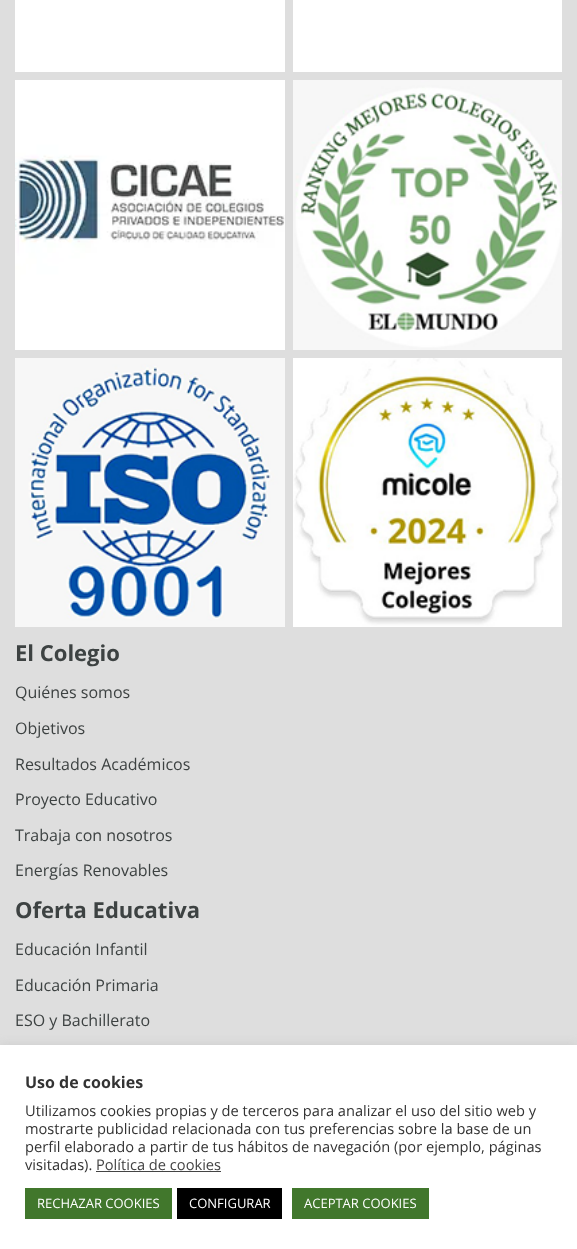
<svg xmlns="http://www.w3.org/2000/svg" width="577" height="1249">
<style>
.a{font:bold 22px Open Sans;fill:#3d4242}
.b{font:16px Open Sans;fill:#3d4242}
.c{font:bold 16px Open Sans;fill:#333}
.d{font:14.65px Open Sans;fill:#333}
.e{font:14.65px Open Sans;fill:#444}
.f{font:13px Open Sans;fill:#fff}
</style>
<rect width="100%" height="100%" fill="#dedede"/>
<path fill="#fff" d="M15 0h270v72H15z"/>
<path fill="#fff" d="M293 0h269v72H293z"/>
<image href="1.png" x="15" y="80" width="270" height="270"/>
<image href="2.png" x="293" y="80" width="269" height="270"/>
<image href="3.png" x="15" y="358" width="270" height="269"/>
<image href="4.png" x="293" y="358" width="269" height="269"/>
<path fill="#acabab4d" filter="blur(5px)" d="M0 1044h577v204H0z"/>
<path fill="#fff" d="M0 1045h577v204H0z"/>
<path fill="#444" d="M96 1171h125v1H96z"/>
<path fill="#41772c" d="M25 1188h147v31H25z"/>
<path fill="#000" d="M177 1188h105v31H177z"/>
<path fill="#41772c" d="M292 1188h137v31H292z"/>
<text class="a" x="15" y="661">El Colegio</text>
<text class="b" x="15" y="698">Quiénes somos</text>
<text class="b" x="15" y="734">Objetivos</text>
<text class="b" x="15" y="770">Resultados Académicos</text>
<text class="b" x="15" y="805">Proyecto Educativo</text>
<text class="b" x="15" y="841">Trabaja con nosotros</text>
<text class="b" x="15" y="876">Energías Renovables</text>
<text class="a" x="15" y="918">Oferta Educativa</text>
<text class="b" x="15" y="955">Educación Infantil</text>
<text class="b" x="15" y="991">Educación Primaria</text>
<text class="b" x="15" y="1026">ESO y Bachillerato</text>
<text class="c" x="25" y="1088">Uso de cookies</text>
<text class="d" x="25" y="1116">Utilizamos cookies propias y de terceros para analizar el uso del sitio web y</text>
<text class="d" x="25" y="1134">mostrarte publicidad relacionada con tus preferencias sobre la base de un</text>
<text class="d" x="25" y="1152">perfil elaborado a partir de tus hábitos de navegación (por ejemplo, páginas</text>
<text class="d" x="25" y="1170">visitadas).</text>
<text class="e" x="96" y="1170">Política de cookies</text>
<text class="f" x="37" y="1208">RECHAZAR COOKIES</text>
<text class="f" x="189" y="1208">CONFIGURAR</text>
<text class="f" x="304" y="1208">ACEPTAR COOKIES</text>
</svg>
